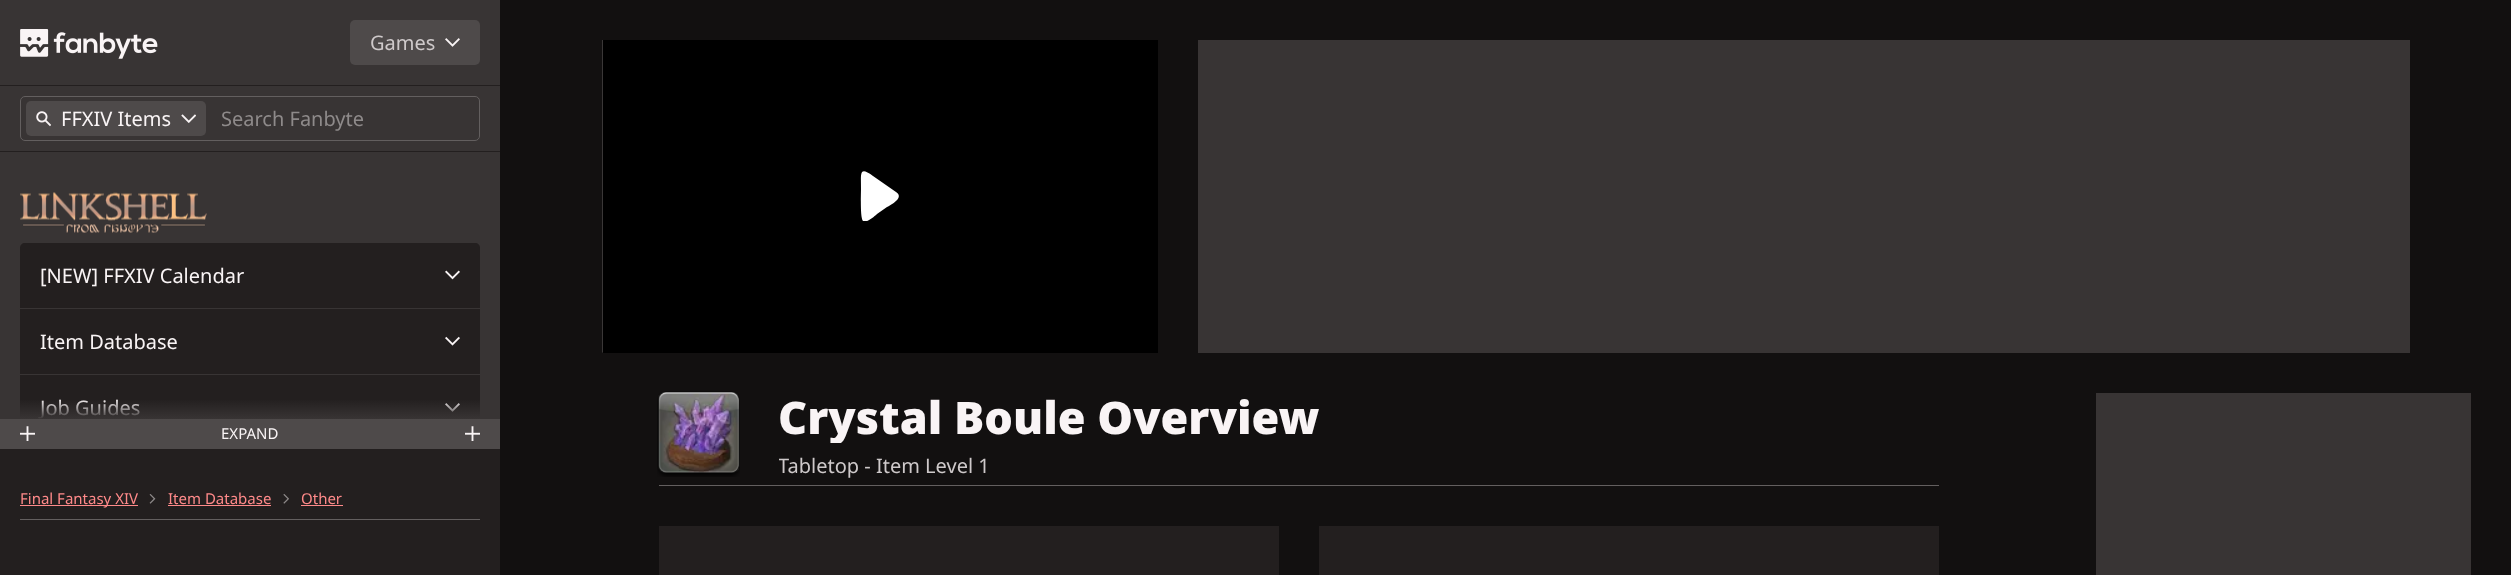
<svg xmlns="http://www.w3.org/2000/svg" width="2511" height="575">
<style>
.a{font:20px Noto Sans;fill:#cec9ca}
.b{font:20px Noto Sans;fill:#f9f4f5}
.c{font:20px Noto Sans;fill:#8e8a8a}
.d{font:15px Noto Sans;fill:#f9f4f5}
.e{font:15px Noto Sans;fill:#ff8a8a}
.f{font:900 45px Noto Sans;fill:#f9f4f5}
</style>
<defs>
<clipPath id="clip1"><path d="M855 171h50v50H855z"/></clipPath>
<linearGradient id="g1" gradientUnits="userSpaceOnUse" x1="250" y1="399" x2="250" y2="419"><stop offset="0" stop-color="#383434" stop-opacity="0"/><stop offset="1" stop-color="#383434"/></linearGradient>
<clipPath id="clip2"><path d="M779 393h541v50H779z"/></clipPath>
<clipPath id="clip3"><path d="M779 453h211v25H779z"/></clipPath>
</defs>
<rect width="100%" height="100%" fill="#121010"/>
<path fill="#231f1f" d="M0 449h500v126H0z"/>
<path fill="#383434" d="M0 0h500v85H0z"/>
<path fill="#231f1f" d="M0 85h500v1H0z"/>
<image href="1.png" x="20" y="29" width="138" height="30"/>
<rect fill="#4e4a4a" x="350" y="20" width="130" height="45" rx="5"/>
<image href="2.png" x="445" y="38" width="15" height="9"/>
<path fill="#383434" d="M0 86h500v333H0z"/>
<path fill="#231f1f" d="M0 151h500v1H0z"/>
<rect fill="none" stroke="#635f5f" x="20.5" y="96.5" width="459" height="44" rx="4.5"/>
<rect fill="#4e4a4a" x="26" y="101" width="180" height="35" rx="5"/>
<image href="3.png" x="36" y="111" width="15" height="16"/>
<image href="4.png" x="181" y="114" width="15" height="9"/>
<image href="5.png" x="20" y="192" width="187" height="41"/>
<path fill="#231f1f" d="M25 243h450c3 0 5 2 5 5v60h-460v-60c0-3 2-5 5-5z"/>
<image href="6.png" x="445" y="270" width="15" height="10"/>
<path fill="#231f1f" d="M20 309h460v65H20z"/>
<image href="7.png" x="445" y="336" width="15" height="10"/>
<path fill="#231f1f" d="M20 375h460v44H20z"/>
<image href="8.png" x="445" y="403" width="15" height="9"/>
<path fill="#4e4a4a" d="M0 419h500v30H0z"/>
<image href="9.png" x="20" y="426" width="15" height="15"/>
<image href="9.png" x="465" y="426" width="15" height="15"/>
<path fill="#635f5f" d="M20 519h460v1H20z"/>
<path fill="#ff8a8a" d="M20 505h118v1H20z"/>
<image href="10.png" x="149" y="494" width="7" height="10"/>
<path fill="#ff8a8a" d="M168 505h103v1H168z"/>
<image href="11.png" x="283" y="494" width="6" height="10"/>
<path fill="#ff8a8a" d="M301 505h42v1H301z"/>
<image href="12.png" x="602" y="40" width="1" height="313"/>
<path fill="#000" d="M603 40h555v313H603z"/>
<g clip-path="url(#clip1)">
<path fill="#fff" d="M896 192l-23-16c-14-10-12-3-12 13c0 5-1 29 2 32c3 3 13-6 14-7l10-7c3-2 18-9 9-15z"/>
</g>
<path fill="#383434" d="M1198 40h1212v313H1198z"/>
<path fill="#635f5f" d="M659 485h1280v1H659z"/>
<image href="14.png" x="658" y="392" width="81" height="81"/>
<image href="13.png" x="657" y="391" width="83" height="86"/>
<path fill="#231f1f" d="M659 526h620v49H659z"/>
<path fill="#231f1f" d="M1319 526h620v49H1319z"/>
<path fill="#383434" d="M2096 393h375v182H2096z"/>
<text class="a" x="370" y="50">Games</text>
<text class="b" x="61" y="126">FFXIV Items</text>
<text class="c" x="221" y="126">Search Fanbyte</text>
<text class="b" x="40" y="283">[NEW] FFXIV Calendar</text>
<text class="b" x="40" y="349">Item Database</text>
<text class="b" x="40" y="415">Job Guides</text>
<path fill="url(#g1)" d="M20 400h460v19H20z"/>
<text class="d" x="221" y="439">EXPAND</text>
<text class="e" x="20" y="504">Final Fantasy XIV</text>
<text class="e" x="168" y="504">Item Database</text>
<text class="e" x="301" y="504">Other</text>
<g clip-path="url(#clip2)">
<text class="f" x="778" y="434">Crystal Boule Overview</text>
</g>
<g clip-path="url(#clip3)">
<text class="a" x="778" y="473">Tabletop - Item Level 1</text>
</g>
</svg>
